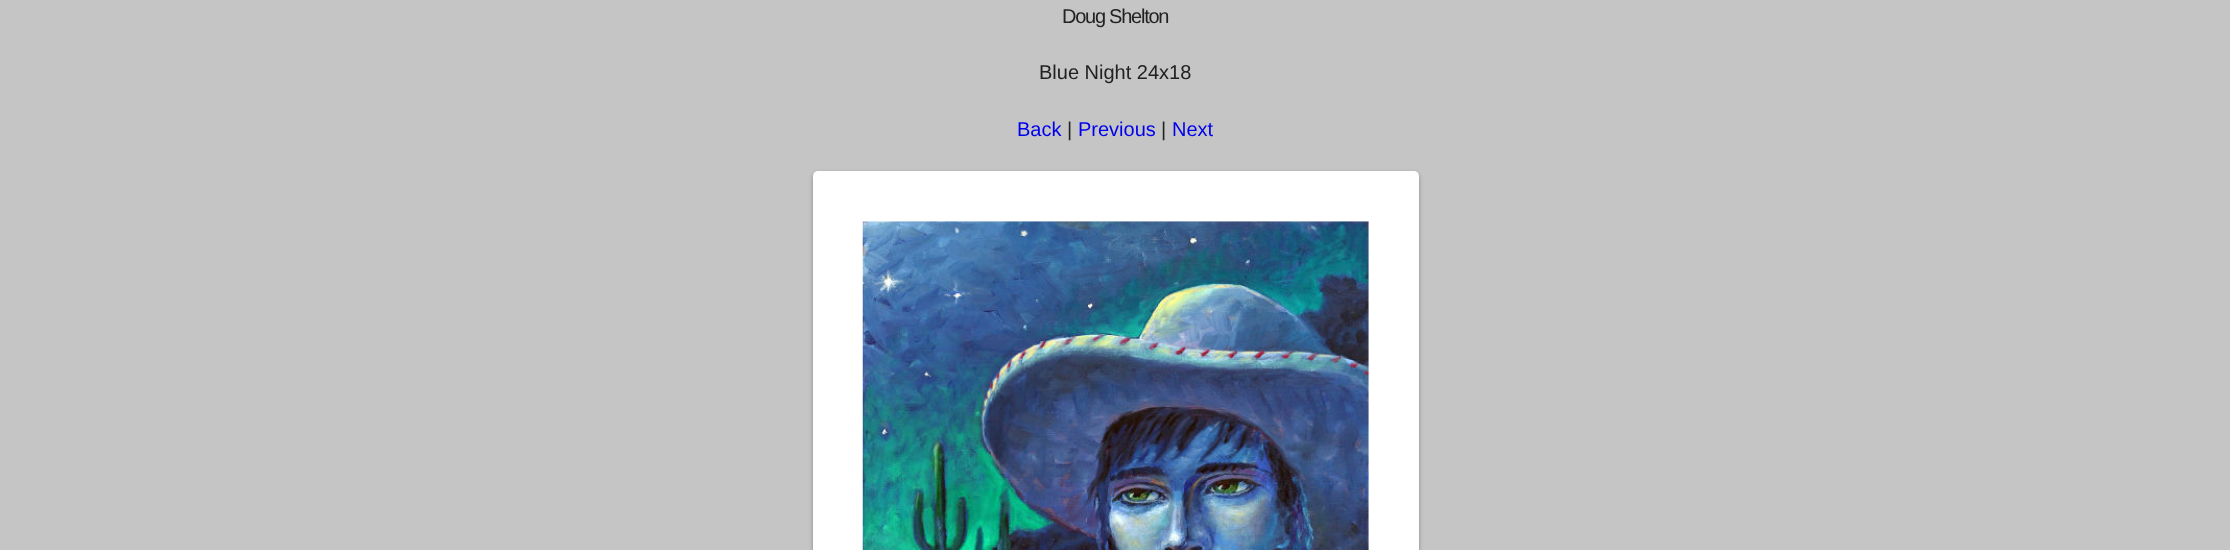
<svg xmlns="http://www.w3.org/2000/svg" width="2230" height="550">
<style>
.a{font:20px Liberation Sans;letter-spacing:-1.25px;fill:#222}
.b{font:20px Liberation Sans;fill:#222}
.c{font:20px Liberation Sans;fill:#00e}
</style>
<rect width="100%" height="100%" fill="#c4c5c4"/>
<rect fill="#0000004d" filter="blur(2px)" x="813" y="173" width="606" height="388" rx="5"/>
<rect fill="#fff" x="813" y="171" width="606" height="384" rx="5"/>
<image href="1.png" x="862" y="221" width="507" height="329"/>
<text class="a" x="1062" y="23">Doug Shelton</text>
<text class="b" x="1039" y="79">Blue Night 24x18</text>
<text class="c" x="1017" y="136">Back</text>
<text class="b" x="1067" y="136">|</text>
<text class="c" x="1078" y="136">Previous</text>
<text class="b" x="1161" y="136">|</text>
<text class="c" x="1172" y="136">Next</text>
</svg>
